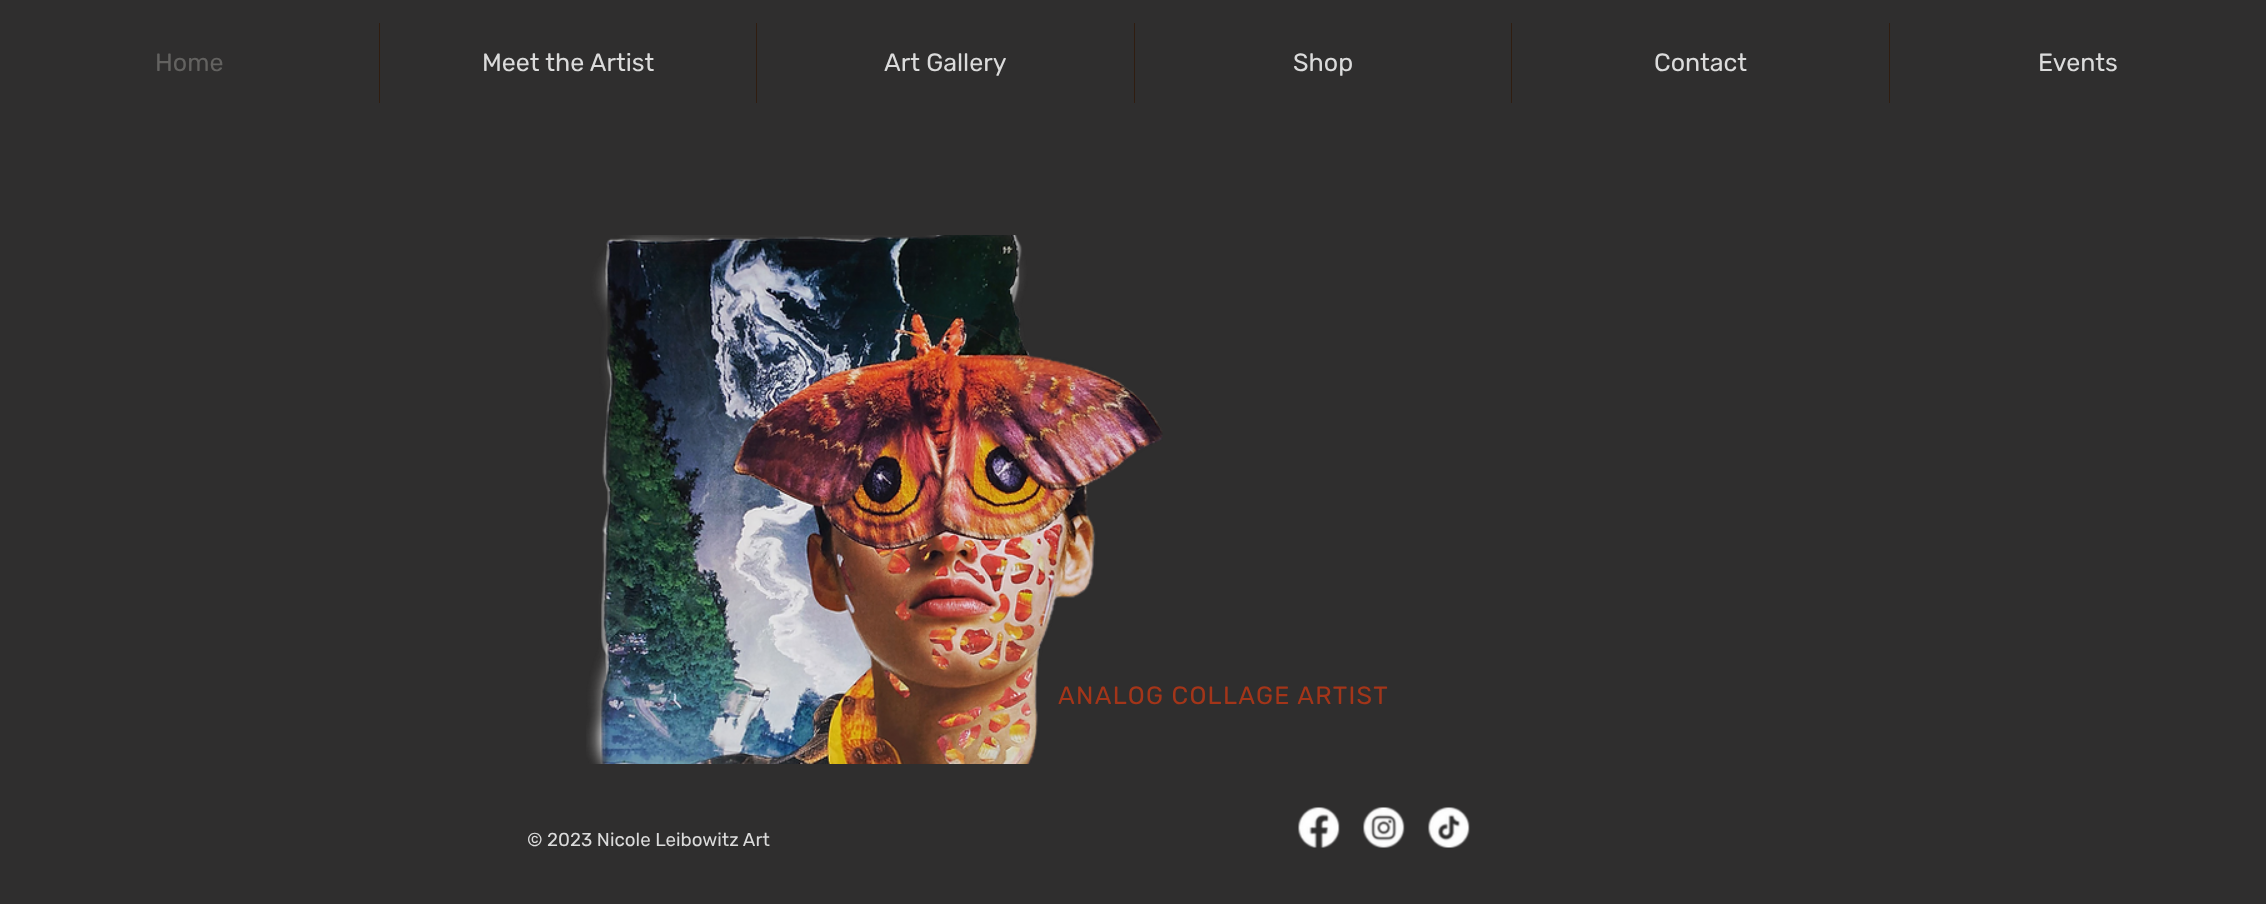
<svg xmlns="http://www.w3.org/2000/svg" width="2266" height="904">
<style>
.a{font:25px Rubik;fill:#636260}
.b{font:25px Rubik;fill:#dbdbdb}
.c{font:25px Rubik;letter-spacing:1.25px;fill:#a33519}
.d{font:18.75px Rubik;fill:#dbdbdb}
</style>
<rect width="100%" height="100%" fill="#2f2e2e"/>
<path fill="#301d10" d="M379 23h1v80H379z"/>
<path fill="#301d10" d="M756 23h1v80H756z"/>
<path fill="#301d10" d="M1134 23h1v80H1134z"/>
<path fill="#301d10" d="M1511 23h1v80H1511z"/>
<path fill="#301d10" d="M1889 23h1v80H1889z"/>
<image href="1.png" x="586" y="235" width="577" height="529"/>
<image href="2.png" x="1298" y="807" width="42" height="41"/>
<image href="3.png" x="1363" y="807" width="42" height="41"/>
<image href="4.png" x="1428" y="807" width="42" height="41"/>
<text class="a" x="155" y="71">Home</text>
<text class="b" x="482" y="71">Meet the Artist</text>
<text class="b" x="884" y="71">Art Gallery</text>
<text class="b" x="1293" y="71">Shop</text>
<text class="b" x="1654" y="71">Contact</text>
<text class="b" x="2038" y="71">Events</text>
<text class="c" x="1058" y="704">ANALOG COLLAGE ARTIST</text>
<text class="d" x="527" y="846">© 2023 Nicole Leibowitz Art</text>
</svg>
